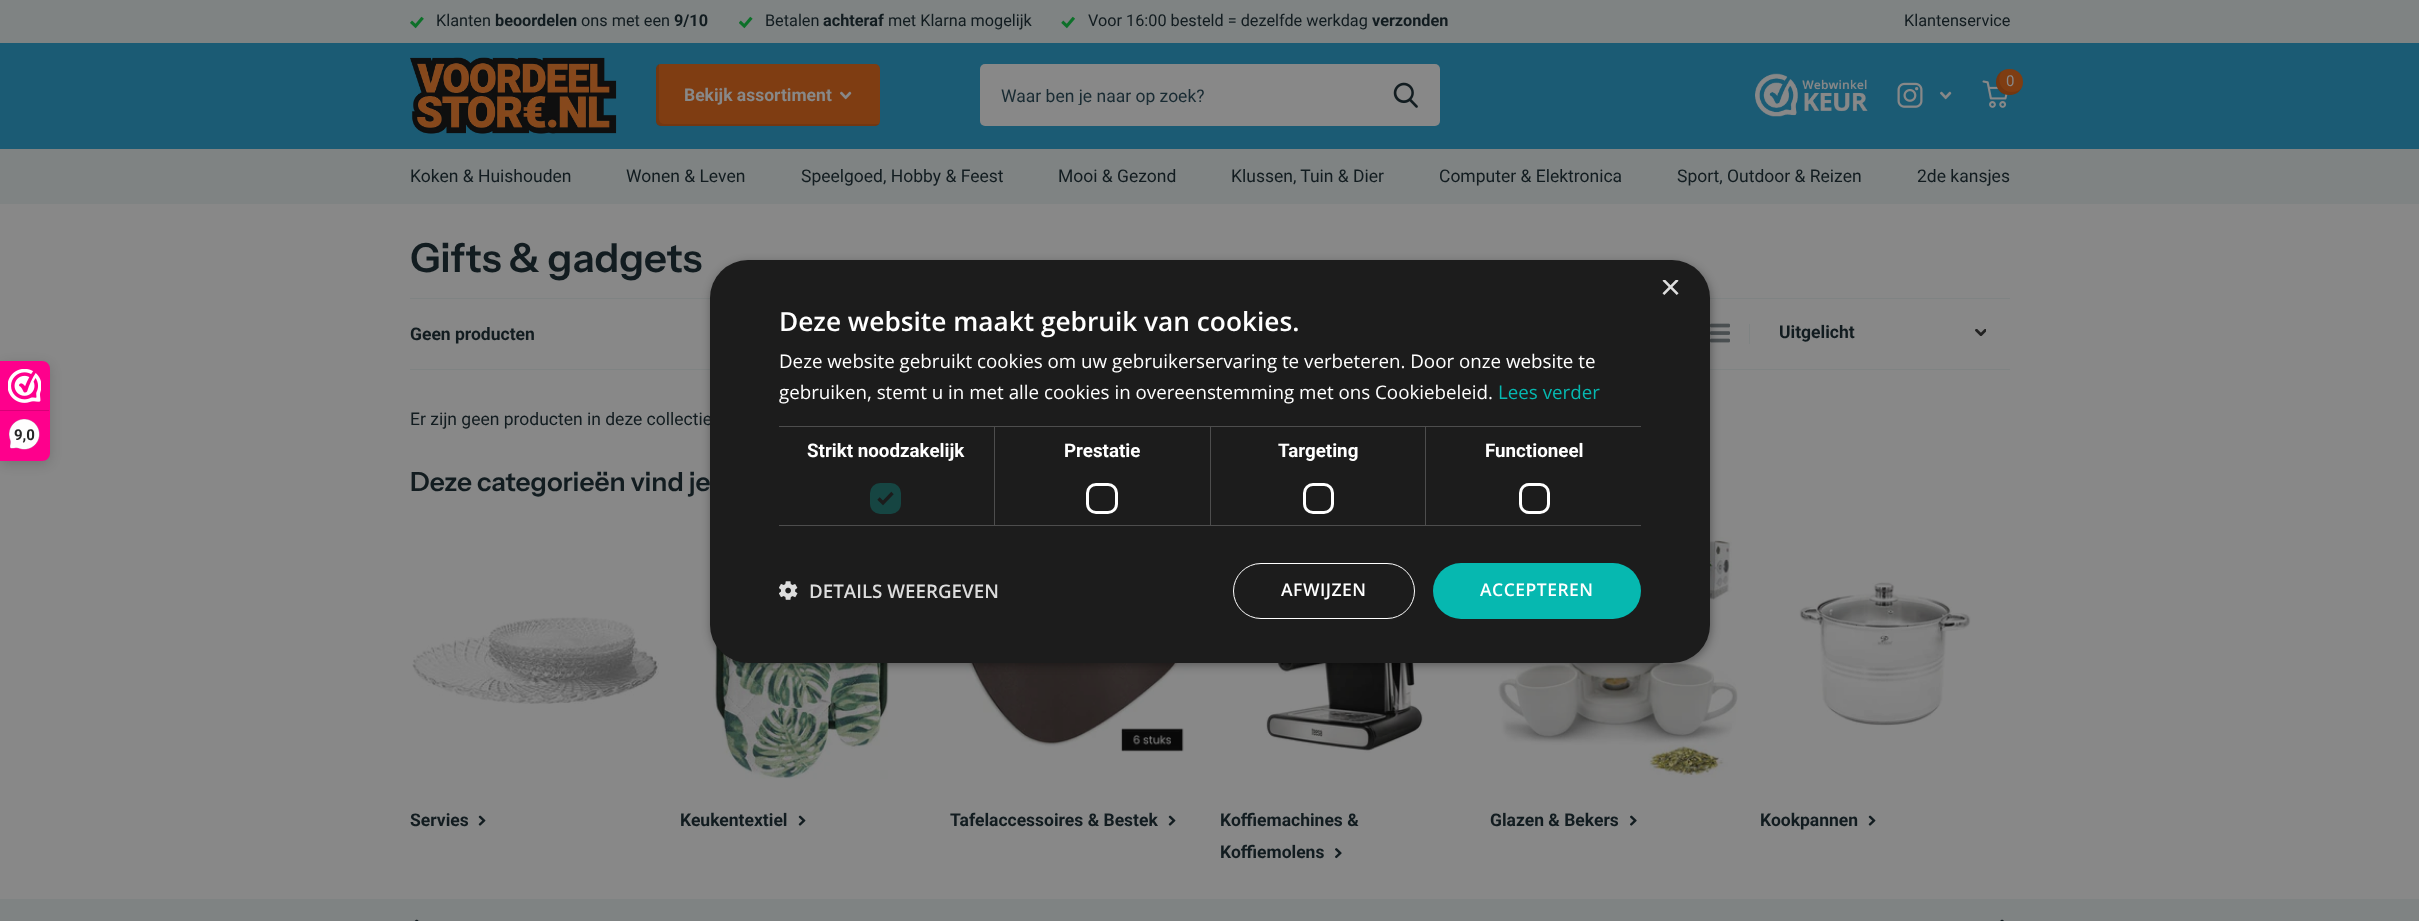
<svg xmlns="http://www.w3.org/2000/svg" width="2419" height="921">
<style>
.a{font:16.25px Roboto;fill:#121c20}
.b{font:bold 16.25px Roboto;fill:#121c20}
.c{font:15px Roboto;fill:#888}
.d{font:bold 17.5px Roboto;fill:#888}
.e{font:17.5px Roboto;fill:#192b33}
.f{font:17.5px Roboto;fill:#121c20}
.g{font:600 40px Instrument Sans;fill:#121c20}
.h{font:bold 17.5px Roboto;fill:#121c20}
.i{font:600 26.25px Instrument Sans;fill:#121c20}
.j{font:bold 15px Roboto;fill:#272626}
.k{font:36px Liberation Sans;fill:#ddd}
.l{font:600 26.25px Open Sans;fill:#fff}
.m{font:18.75px Open Sans;fill:#fff}
.n{font:18.75px Open Sans;fill:#06b8b0}
.o{font:bold 18.75px Roboto;fill:#fff}
.p{font:600 18.75px Open Sans;fill:#ddd}
.q{font:600 17.5px Open Sans;letter-spacing:0.5px;fill:#fff}
</style>
<defs>
<clipPath id="clip1"><path d="M1001 85h369v20H1001z"/></clipPath>
<clipPath id="clip2"><path d="M1660 280h19v19H1660z"/></clipPath>
</defs>
<rect width="100%" height="100%" fill="#888"/>
<path fill="#7f8383" d="M0 0h2419v43H0z"/>
<image href="1.png" x="410" y="16" width="14" height="13"/>
<image href="2.png" x="739" y="16" width="14" height="13"/>
<image href="3.png" x="1061" y="16" width="14" height="13"/>
<path fill="#1b5b74" d="M0 43h2419v106H0z"/>
<path fill="#7f8383" d="M0 149h2419v55H0z"/>
<image href="4.png" x="410" y="57" width="207" height="77"/>
<image href="5.png" x="1755" y="73" width="113" height="44"/>
<image href="6.png" x="1897" y="82" width="26" height="26"/>
<image href="7.png" x="1940" y="91" width="12" height="9"/>
<image href="8.png" x="1982" y="80" width="26" height="28"/>
<rect fill="#7f3d12" x="1996" y="69" width="27" height="26" rx="13"/>
<path fill="#0909091a" d="M2021.5 88c-2 2.5-5 4-9.5 4c-12 0-15.5-13-10.5-20.5c-7.5 5-7 16.5 0 21.5c7 4 16.5 2 20-5z"/>
<rect fill="#7f3d12" x="656" y="64" width="224" height="62" rx="5"/>
<path fill="#0909091a" d="M659 64c-2 1-3 3-3 5v52c0 3 2 5 5 5h214c2 0 3-1 4-2h-215c-7 0-5-10-5-14z"/>
<image href="9.png" x="840" y="91" width="12" height="9"/>
<rect fill="#888" x="980" y="64" width="460" height="62" rx="5"/>
<image href="10.png" x="1393" y="82" width="25" height="26"/>
<path fill="#7f8383" d="M410 298h1600v1H410z"/>
<path fill="#7f8383" d="M410 369h1600v1H410z"/>
<image href="11.png" x="1710" y="323" width="20" height="20"/>
<path fill="#7f8383" d="M1749 324h1v20H1749z"/>
<image href="12.png" x="1975" y="329" width="11" height="7"/>
<image href="13.png" x="412" y="617" width="247" height="87"/>
<image href="14.png" x="478" y="815" width="8" height="11"/>
<image href="15.png" x="713" y="639" width="181" height="140"/>
<image href="14.png" x="798" y="815" width="8" height="11"/>
<image href="16.png" x="958" y="663" width="234" height="89"/>
<image href="14.png" x="1168" y="815" width="8" height="11"/>
<image href="17.png" x="1264" y="663" width="163" height="90"/>
<image href="18.png" x="1335" y="848" width="7" height="11"/>
<image href="19.png" x="1490" y="529" width="248" height="249"/>
<image href="20.png" x="1630" y="815" width="7" height="11"/>
<image href="21.png" x="1799" y="582" width="172" height="144"/>
<image href="14.png" x="1868" y="815" width="8" height="11"/>
<path fill="#7f8383" d="M0 899h2419v22H0z"/>
<image href="22.png" x="414" y="919" width="5" height="2"/>
<image href="23.png" x="2000" y="919" width="4" height="2"/>
<rect fill="#00000026" filter="blur(6px)" y="364" width="50" height="100" rx="8"/>
<path fill="#fe008c" d="M0 361h42c4.5 0 8 3.5 8 8v84c0 4.5-3.5 8-8 8h-42z"/>
<image href="24.png" x="8" y="369" width="33" height="34"/>
<path fill="#d80077" d="M0 410h49v1H0z"/>
<image href="25.png" x="9" y="419" width="31" height="31"/>
<rect fill="#00000059" filter="blur(5px)" x="711" y="263" width="1000" height="402" rx="38"/>
<text class="a" x="436" y="26">Klanten</text>
<text class="b" x="495" y="26">beoordelen</text>
<text class="a" x="581" y="26">ons met een</text>
<text class="b" x="674" y="26">9/10</text>
<text class="a" x="765" y="26">Betalen</text>
<text class="b" x="823" y="26">achteraf</text>
<text class="a" x="888" y="26">met Klarna mogelijk</text>
<text class="a" x="1088" y="26">Voor 16:00 besteld = dezelfde werkdag</text>
<text class="b" x="1372" y="26">verzonden</text>
<text class="a" x="1904" y="26">Klantenservice</text>
<text class="c" x="2006" y="86">0</text>
<text class="d" x="684" y="101">Bekijk assortiment</text>
<g clip-path="url(#clip1)">
<text class="e" x="1001" y="102">Waar ben je naar op zoek?</text>
</g>
<text class="f" x="410" y="182">Koken &amp; Huishouden</text>
<text class="f" x="626" y="182">Wonen &amp; Leven</text>
<text class="f" x="801" y="182">Speelgoed, Hobby &amp; Feest</text>
<text class="f" x="1058" y="182">Mooi &amp; Gezond</text>
<text class="f" x="1231" y="182">Klussen, Tuin &amp; Dier</text>
<text class="f" x="1439" y="182">Computer &amp; Elektronica</text>
<text class="f" x="1677" y="182">Sport, Outdoor &amp; Reizen</text>
<text class="f" x="1917" y="182">2de kansjes</text>
<text class="g" x="410" y="272">Gifts &amp; gadgets</text>
<text class="h" x="410" y="340">Geen producten</text>
<text class="h" x="1779" y="338">Uitgelicht</text>
<text class="f" x="410" y="425">Er zijn geen producten in deze collectie</text>
<text class="i" x="410" y="491">Deze categorieën vind je</text>
<text class="h" x="410" y="826">Servies</text>
<text class="h" x="680" y="826">Keukentextiel</text>
<text class="h" x="950" y="826">Tafelaccessoires &amp; Bestek</text>
<text class="h" x="1220" y="826">Koffiemachines &amp;</text>
<text class="h" x="1220" y="858">Koffiemolens</text>
<text class="h" x="1490" y="826">Glazen &amp; Bekers</text>
<text class="h" x="1760" y="826">Kookpannen</text>
<text class="j" x="14" y="440">9,0</text>
<rect fill="#1c1c1c" x="710" y="260" width="1000" height="403" rx="38"/>
<g clip-path="url(#clip2)">
<text class="k" x="1660" y="299">×</text>
</g>
<text class="l" x="779" y="331">Deze website maakt gebruik van cookies.</text>
<text class="m" x="779" y="368">Deze website gebruikt cookies om uw gebruikerservaring te verbeteren. Door onze website te</text>
<text class="m" x="779" y="399">gebruiken, stemt u in met alle cookies in overeenstemming met ons Cookiebeleid.</text>
<text class="n" x="1498" y="399">Lees verder</text>
<path fill="#4d4d4d" d="M779 426h862v1H779z"/>
<path fill="#4d4d4d" d="M994 426h1v100H994z"/>
<path fill="#4d4d4d" d="M779 525h216v1H779z"/>
<text class="o" x="807" y="457">Strikt noodzakelijk</text>
<rect fill="#164542" x="870" y="483" width="31" height="31" rx="10"/>
<path fill="none" stroke="#1c1c1c" stroke-width="3.3" d="M878.5 498.5l4.5 4.5l9.5-10"/>
<path fill="#4d4d4d" d="M1210 426h1v100H1210z"/>
<path fill="#4d4d4d" d="M995 525h216v1H995z"/>
<text class="o" x="1064" y="457">Prestatie</text>
<rect fill="none" stroke="#fff" stroke-width="3" x="1087.5" y="484.5" width="29" height="28" rx="8.5"/>
<path fill="#4d4d4d" d="M1425 426h1v100H1425z"/>
<path fill="#4d4d4d" d="M1211 525h430v1H1211z"/>
<text class="o" x="1278" y="457">Targeting</text>
<rect fill="none" stroke="#fff" stroke-width="3" x="1304.5" y="484.5" width="28" height="28" rx="8.5"/>
<text class="o" x="1485" y="457">Functioneel</text>
<rect fill="none" stroke="#fff" stroke-width="3" x="1520.5" y="484.5" width="28" height="28" rx="8.5"/>
<image href="26.png" x="779" y="581" width="19" height="19"/>
<text class="p" x="809" y="598">DETAILS WEERGEVEN</text>
<rect fill="none" stroke="#fff" x="1233.5" y="563.5" width="181" height="55" rx="27.5"/>
<text class="q" x="1281" y="596">AFWIJZEN</text>
<rect fill="#06b8b0" x="1433" y="563" width="208" height="56" rx="28"/>
<text class="q" x="1480" y="596">ACCEPTEREN</text>
</svg>
